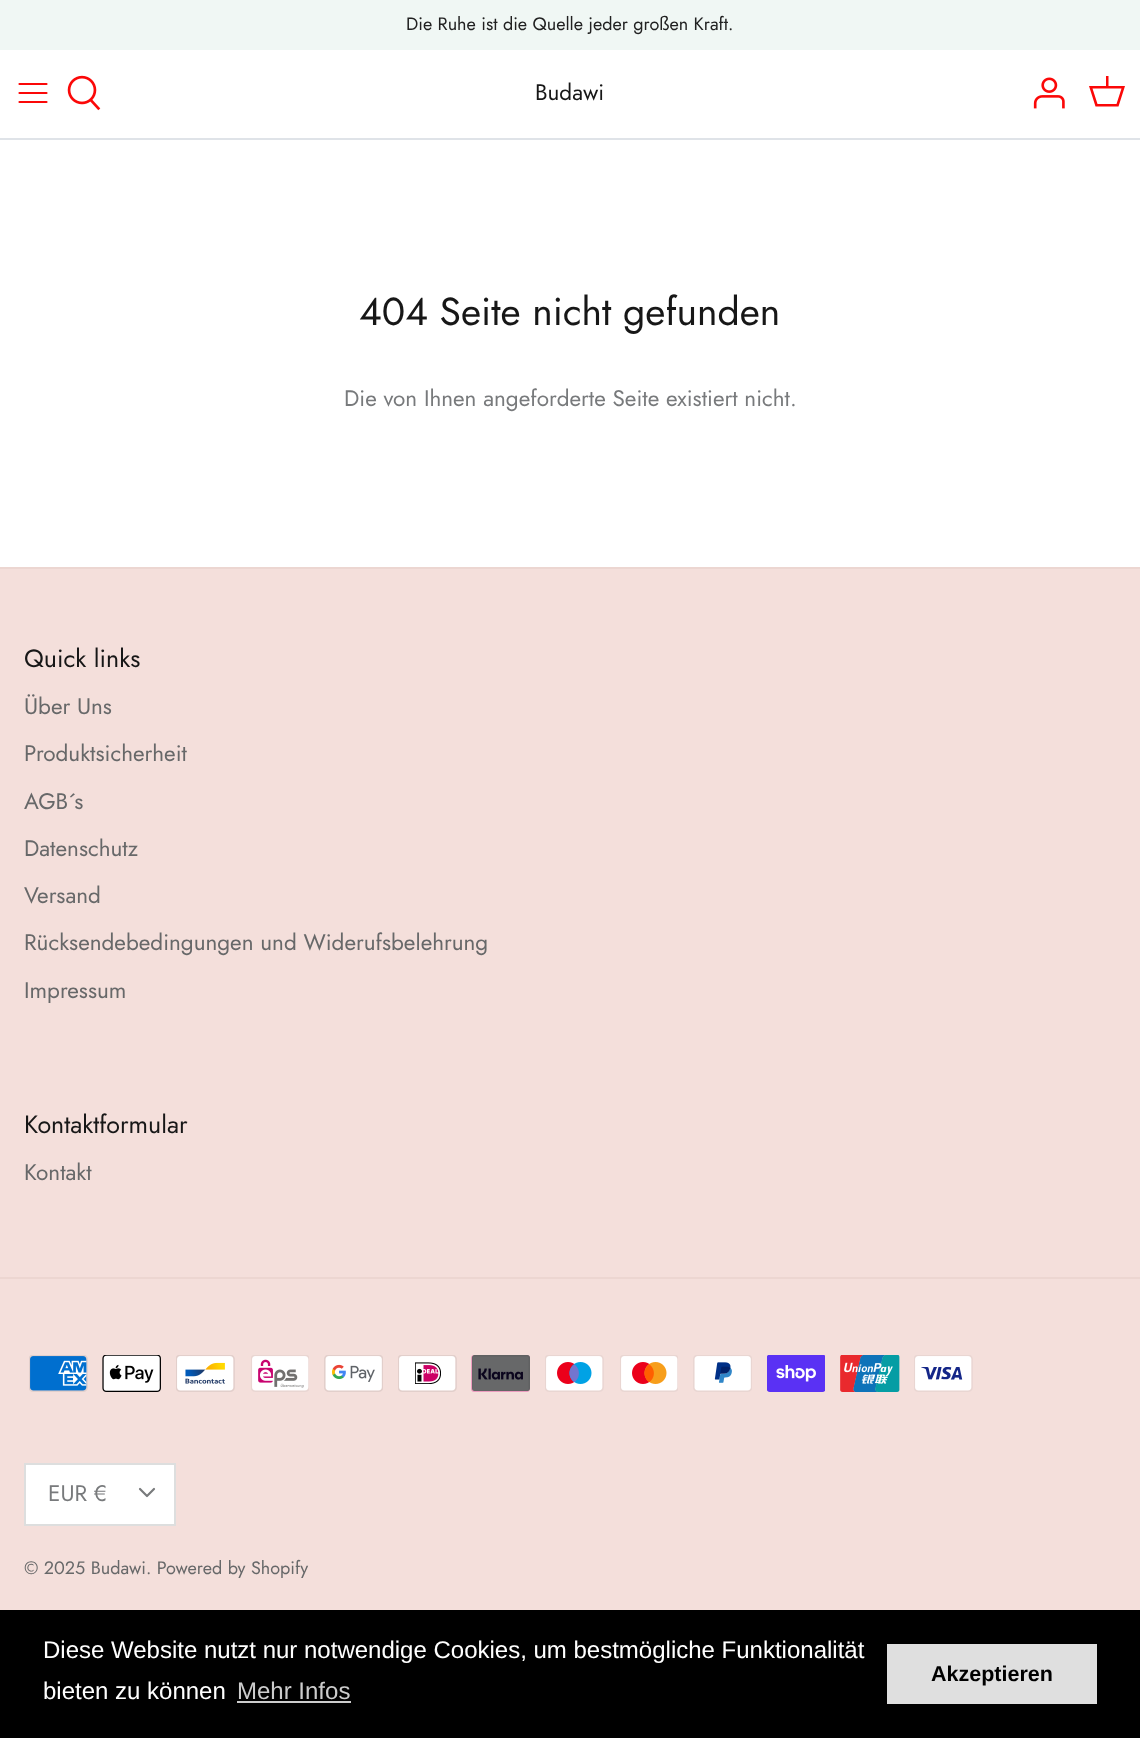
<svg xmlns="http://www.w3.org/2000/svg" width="1140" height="1738">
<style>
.a{font:18px Jost;fill:#212121}
.b{font:22.5px Jost;fill:#171717}
.c{font:39px Jost;fill:#171717}
.d{font:22.5px Jost;fill:#787a7c}
.e{font:25px Jost;fill:#171717}
.f{font:22.5px Jost;fill:#676869}
.g{font:18px Jost;fill:#676869}
.h{font:24px Liberation Sans;fill:#fff}
.i{font:24px Liberation Sans;fill:#ccc}
.j{font:bold 21.5px Liberation Sans;fill:#000}
</style>
<rect width="100%" height="100%" fill="#fff"/>
<path fill="#f0f7f4" d="M0 0h1140v50H0z"/>
<path fill="#dfe3e8" d="M0 138h1140v2H0z"/>
<path fill="none" stroke="#fb0808" stroke-width="2.2" stroke-linecap="round" stroke-linejoin="round" d="M19.5 93h27m-27-9h27m-27 18h27"/>
<image href="1.png" x="67" y="75" width="34" height="36"/>
<image href="2.png" x="1033" y="77" width="32" height="32"/>
<path fill="#fb0808" d="M1106 86v-10h2.5v10h16.5l-6.5 20.5h-23l-6.5-20.5zm-13.5 2.5l5 15.5h19l5-15.5z"/>
<path fill="#f4dfdb" d="M0 569h1140v1041H0z"/>
<path fill="#ecd6d1" d="M0 567h1140v2H0z"/>
<path fill="#ecd6d1" d="M0 1277h1140v2H0z"/>
<image href="3.png" x="29" y="1355" width="59" height="37"/>
<image href="4.png" x="102" y="1355" width="59" height="37"/>
<image href="5.png" x="176" y="1355" width="59" height="37"/>
<image href="6.png" x="251" y="1355" width="58" height="37"/>
<image href="7.png" x="324" y="1355" width="59" height="37"/>
<image href="8.png" x="398" y="1355" width="59" height="37"/>
<image href="9.png" x="471" y="1355" width="59" height="37"/>
<image href="10.png" x="545" y="1355" width="59" height="37"/>
<image href="11.png" x="620" y="1355" width="58" height="37"/>
<image href="12.png" x="693" y="1355" width="59" height="37"/>
<image href="13.png" x="767" y="1355" width="58" height="37"/>
<image href="14.png" x="840" y="1355" width="60" height="37"/>
<image href="15.png" x="914" y="1355" width="59" height="37"/>
<path fill="#fff" stroke="#dddede" stroke-width="2" d="M25 1464h150v61H25z"/>
<path fill="none" stroke="#787a7c" stroke-width="2.2" stroke-linecap="round" stroke-linejoin="round" d="M140 1489l7 7l7-7"/>
<path fill="#000" d="M0 1610h1140v128H0z"/>
<path fill="#ccc" d="M237 1701h114v2H237z"/>
<path fill="#dfdfdf" d="M887 1644h210v60H887z"/>
<text class="a" x="406" y="30">Die Ruhe ist die Quelle jeder großen Kraft.</text>
<text class="b" x="535" y="100">Budawi</text>
<text class="c" x="359" y="325">404 Seite nicht gefunden</text>
<text class="d" x="344" y="406">Die von Ihnen angeforderte Seite existiert nicht.</text>
<text class="e" x="24" y="667">Quick links</text>
<text class="f" x="24" y="714">Über Uns</text>
<text class="f" x="24" y="761">Produktsicherheit</text>
<text class="f" x="24" y="809">AGB´s</text>
<text class="f" x="24" y="856">Datenschutz</text>
<text class="f" x="24" y="903">Versand</text>
<text class="f" x="24" y="950">Rücksendebedingungen und Widerufsbelehrung</text>
<text class="f" x="24" y="998">Impressum</text>
<text class="e" x="24" y="1133">Kontaktformular</text>
<text class="f" x="24" y="1180">Kontakt</text>
<text class="d" x="48" y="1501">EUR €</text>
<text class="g" x="24" y="1574">© 2025 Budawi. Powered by Shopify</text>
<text class="h" x="43" y="1658">Diese Website nutzt nur notwendige Cookies, um bestmögliche Funktionalität</text>
<text class="h" x="43" y="1699">bieten zu können</text>
<text class="i" x="237" y="1699">Mehr Infos</text>
<text class="j" x="931" y="1681">Akzeptieren</text>
</svg>
